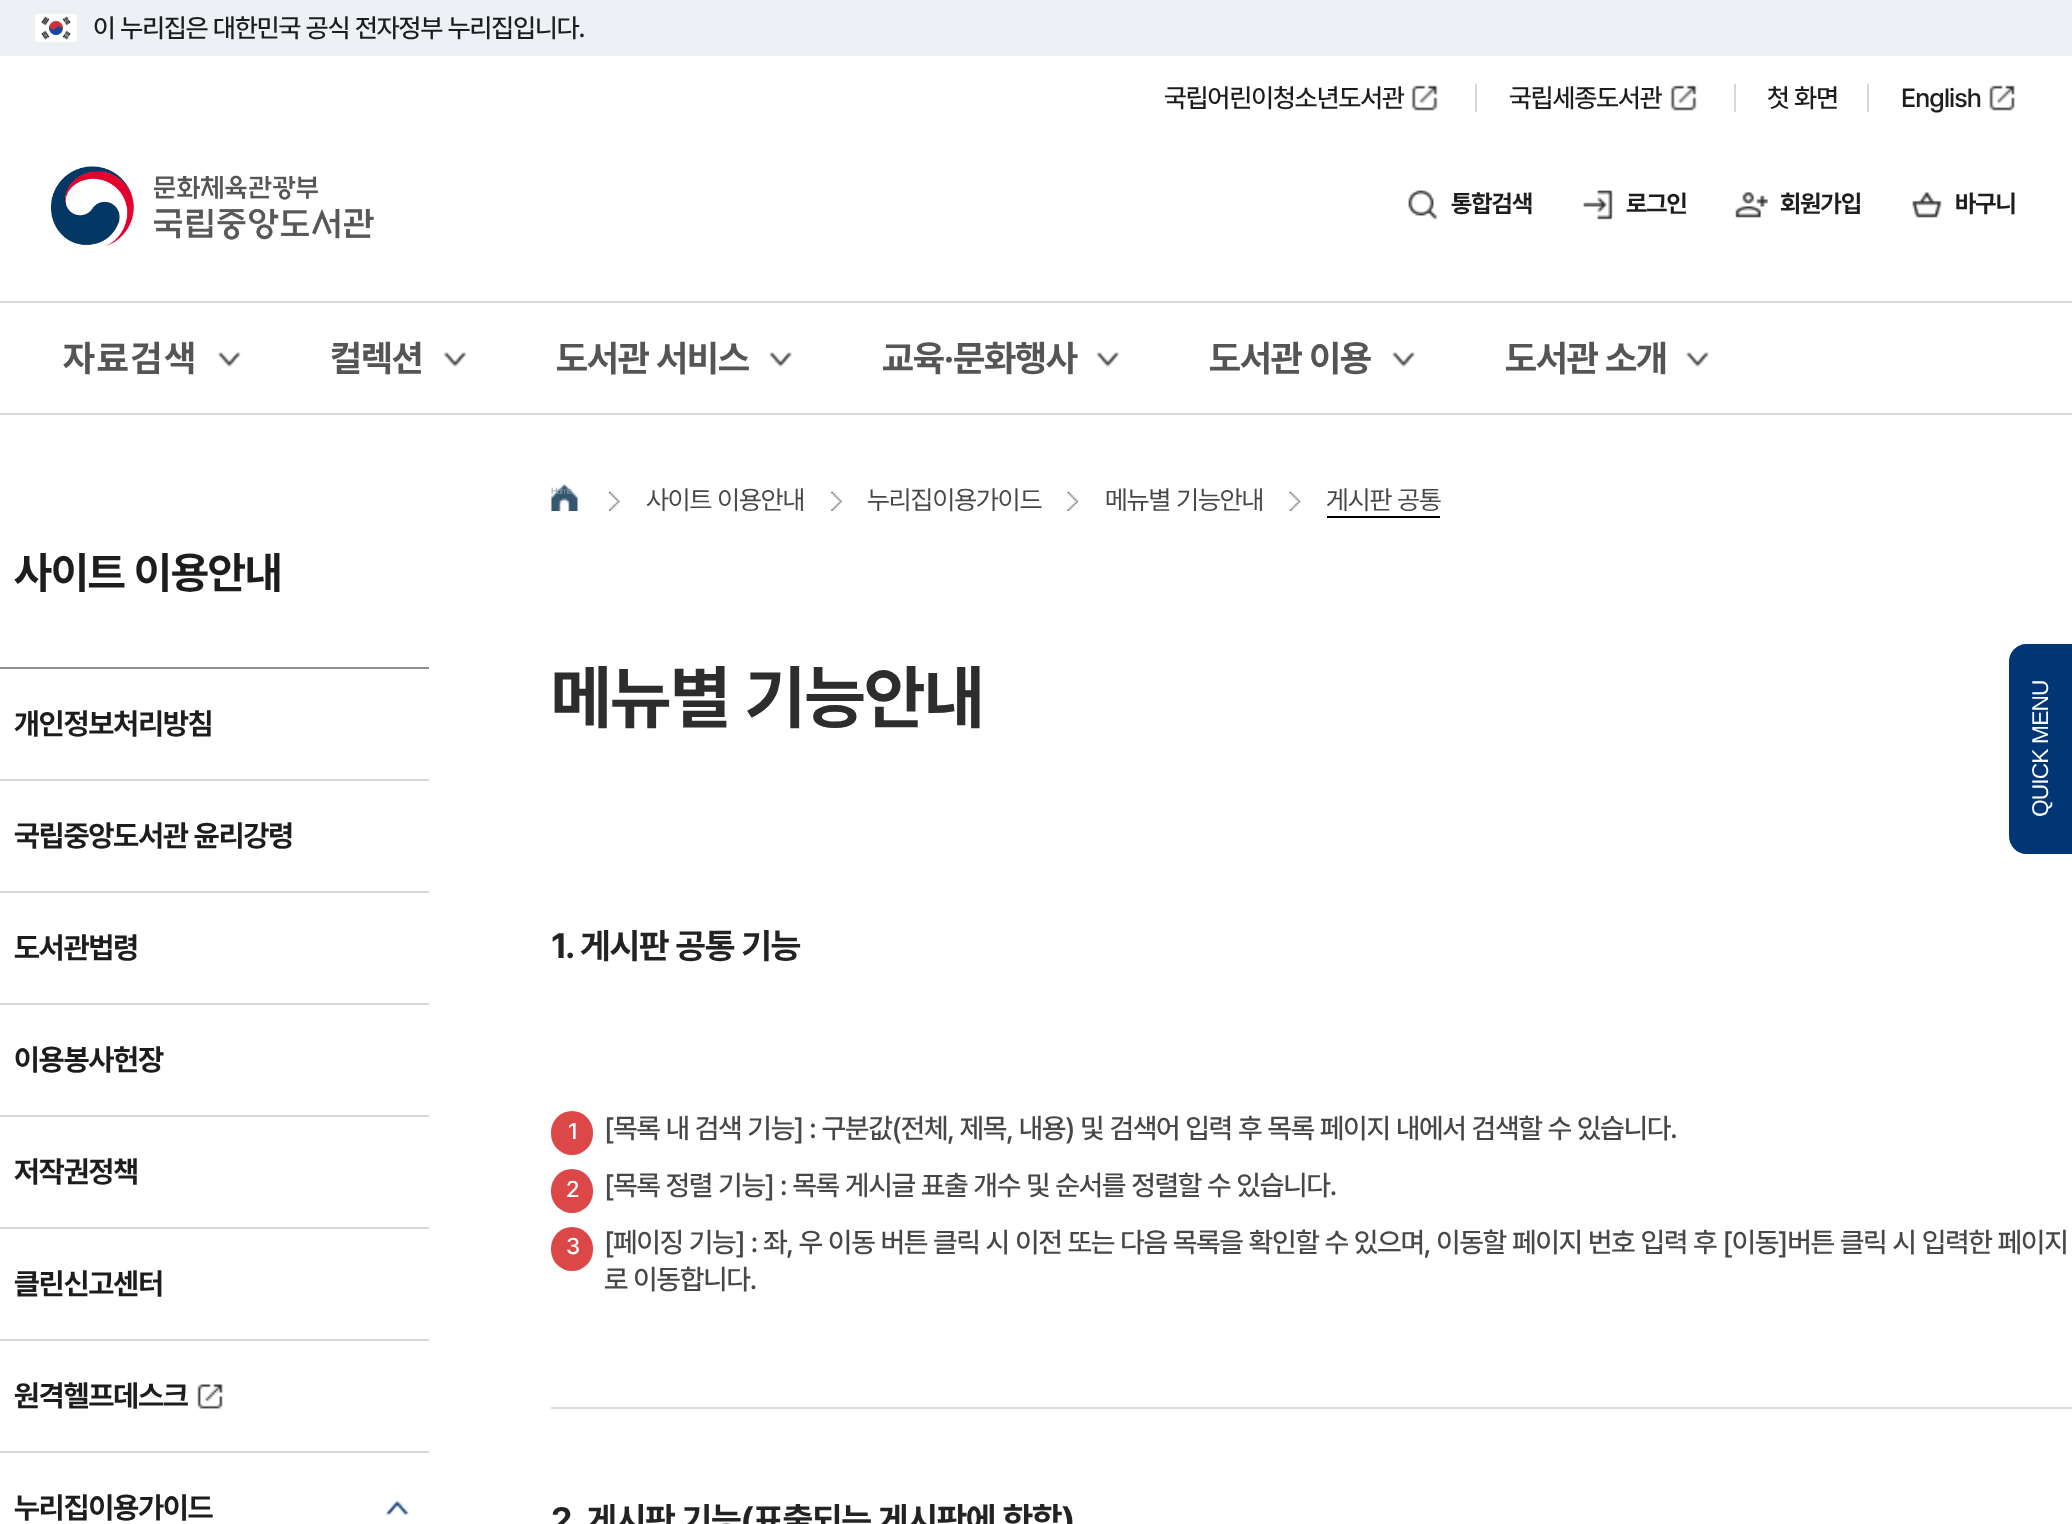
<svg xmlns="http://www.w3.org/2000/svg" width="2072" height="1524">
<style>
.a{font:500 26.25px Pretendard;letter-spacing:-0.88px;fill:#1d1d1d}
.b{font:bold 24.5px Pretendard;letter-spacing:-0.88px;fill:#1d1d1d}
.c{font:bold 36.75px Pretendard;letter-spacing:2px;fill:#555}
.d{font:bold 36.75px Pretendard;letter-spacing:-0.88px;fill:#555}
.e{font:bold 43.75px Pretendard;letter-spacing:-0.88px;fill:#1d1d1d}
.f{font:bold 29.75px Pretendard;letter-spacing:-0.88px;fill:#1d1d1d}
.g{font:9px Pretendard;letter-spacing:-0.88px;fill:#869aa9}
.h{font:26.25px Pretendard;letter-spacing:-0.88px;fill:#474747}
.i{font:bold 70px Pretendard;letter-spacing:-0.88px;fill:#2d2d2d}
.j{font:bold 35px Pretendard;letter-spacing:-0.88px;fill:#232323}
.k{font:500 22.75px Pretendard;letter-spacing:-0.88px;fill:#fff}
.l{font:500 28px Pretendard;letter-spacing:-0.88px;fill:#474747}
.m{font:22.75px Liberation Sans;letter-spacing:-0.88px;fill:#fff}
</style>
<rect width="100%" height="100%" fill="#fff"/>
<path fill="#edf1f5" d="M0 0h2072v56H0z"/>
<image href="1.png" x="35" y="14" width="42" height="28"/>
<path fill="#d8d8d8" d="M0 301h2072v2H0z"/>
<image href="2.png" x="1411" y="85" width="27" height="26"/>
<path fill="#d8d8d8" d="M1475 84h2v28H1475z"/>
<image href="2.png" x="1670" y="85" width="27" height="26"/>
<path fill="#d8d8d8" d="M1734 84h2v28H1734z"/>
<path fill="#d8d8d8" d="M1867 84h2v28H1867z"/>
<image href="3.png" x="1989" y="85" width="26" height="26"/>
<image href="4.png" x="51" y="166" width="323" height="80"/>
<image href="5.png" x="1408" y="190" width="30" height="30"/>
<image href="6.png" x="1583" y="190" width="30" height="30"/>
<image href="7.png" x="1735" y="192" width="33" height="26"/>
<image href="8.png" x="1912" y="192" width="30" height="26"/>
<path fill="#d8d8d8" d="M0 413h2072v2H0z"/>
<image href="9.png" x="218" y="351" width="23" height="16"/>
<image href="10.png" x="444" y="351" width="22" height="16"/>
<image href="11.png" x="769" y="351" width="23" height="16"/>
<image href="12.png" x="1096" y="351" width="23" height="16"/>
<image href="13.png" x="1392" y="351" width="23" height="16"/>
<image href="13.png" x="1686" y="351" width="23" height="16"/>
<path fill="#8e8e8e" d="M0 667h429v2H0z"/>
<path fill="#d8d8d8" d="M0 779h429v2H0z"/>
<path fill="#d8d8d8" d="M0 891h429v2H0z"/>
<path fill="#d8d8d8" d="M0 1003h429v2H0z"/>
<path fill="#d8d8d8" d="M0 1115h429v2H0z"/>
<path fill="#d8d8d8" d="M0 1227h429v2H0z"/>
<path fill="#d8d8d8" d="M0 1339h429v2H0z"/>
<path fill="#d8d8d8" d="M0 1451h429v2H0z"/>
<image href="14.png" x="197" y="1384" width="26" height="25"/>
<image href="15.png" x="386" y="1501" width="23" height="15"/>
<image href="16.png" x="551" y="484" width="27" height="27"/>
<image href="17.png" x="609" y="491" width="11" height="20"/>
<image href="18.png" x="831" y="491" width="11" height="20"/>
<image href="19.png" x="1067" y="491" width="11" height="20"/>
<image href="20.png" x="1289" y="491" width="12" height="20"/>
<path fill="#000" d="M1327 516h113v2H1327z"/>
<rect fill="#dc4848" x="551" y="1111" width="42" height="44" rx="21"/>
<rect fill="#dc4848" x="551" y="1169" width="42" height="44" rx="21"/>
<rect fill="#dc4848" x="551" y="1227" width="42" height="44" rx="21"/>
<path fill="#dcdcdc" d="M551 1407h1521v2H551z"/>
<path fill="#003675" d="M2009 836v-175c0-9 8-17 17-17h46v210h-46c-9 0-17-8-17-18z"/>
<text class="a" x="93" y="37">이 누리집은 대한민국 공식 전자정부 누리집입니다.</text>
<text class="a" x="1164" y="107">국립어린이청소년도서관</text>
<text class="a" x="1509" y="107">국립세종도서관</text>
<text class="a" x="1767" y="107">첫 화면</text>
<text class="a" x="1901" y="107">English</text>
<text class="b" x="1451" y="212">통합검색</text>
<text class="b" x="1626" y="212">로그인</text>
<text class="b" x="1780" y="212">회원가입</text>
<text class="b" x="1955" y="212">바구니</text>
<text class="c" x="63" y="371">자료검색</text>
<text class="d" x="330" y="371">컬렉션</text>
<text class="d" x="556" y="371">도서관 서비스</text>
<text class="d" x="882" y="371">교육·문화행사</text>
<text class="d" x="1209" y="371">도서관 이용</text>
<text class="d" x="1505" y="371">도서관 소개</text>
<text class="e" x="14" y="588">사이트 이용안내</text>
<text class="f" x="14" y="734">개인정보처리방침</text>
<text class="f" x="14" y="846">국립중앙도서관 윤리강령</text>
<text class="f" x="14" y="958">도서관법령</text>
<text class="f" x="14" y="1070">이용봉사헌장</text>
<text class="f" x="14" y="1182">저작권정책</text>
<text class="f" x="14" y="1294">클린신고센터</text>
<text class="f" x="14" y="1406">원격헬프데스크</text>
<text class="f" x="14" y="1518">누리집이용가이드</text>
<text class="g" x="551" y="494">Home</text>
<text class="h" x="646" y="509">사이트 이용안내</text>
<text class="h" x="867" y="509">누리집이용가이드</text>
<text class="h" x="1105" y="509">메뉴별 기능안내</text>
<text class="h" x="1326" y="509">게시판 공통</text>
<text class="i" x="551" y="722">메뉴별 기능안내</text>
<text class="j" x="551" y="958">1. 게시판 공통 기능</text>
<text class="k" x="568" y="1139">1</text>
<text class="l" x="604" y="1138">[목록 내 검색 기능] : 구분값(전체, 제목, 내용) 및 검색어 입력 후 목록 페이지 내에서 검색할 수 있습니다.</text>
<text class="k" x="566" y="1197">2</text>
<text class="l" x="604" y="1195">[목록 정렬 기능] : 목록 게시글 표출 개수 및 순서를 정렬할 수 있습니다.</text>
<text class="k" x="566" y="1254">3</text>
<text class="l" x="604" y="1252">[페이징 기능] : 좌, 우 이동 버튼 클릭 시 이전 또는 다음 목록을 확인할 수 있으며, 이동할 페이지 번호 입력 후 [이동]버튼 클릭 시 입력한 페이지</text>
<text class="l" x="604" y="1289">로 이동합니다.</text>
<text class="j" x="551" y="1532">2. 게시판 기능(표출되는 게시판에 한함)</text>
<text class="m" x="2048" y="817" transform="rotate(-90 2048 817)">QUICK MENU</text>
</svg>
